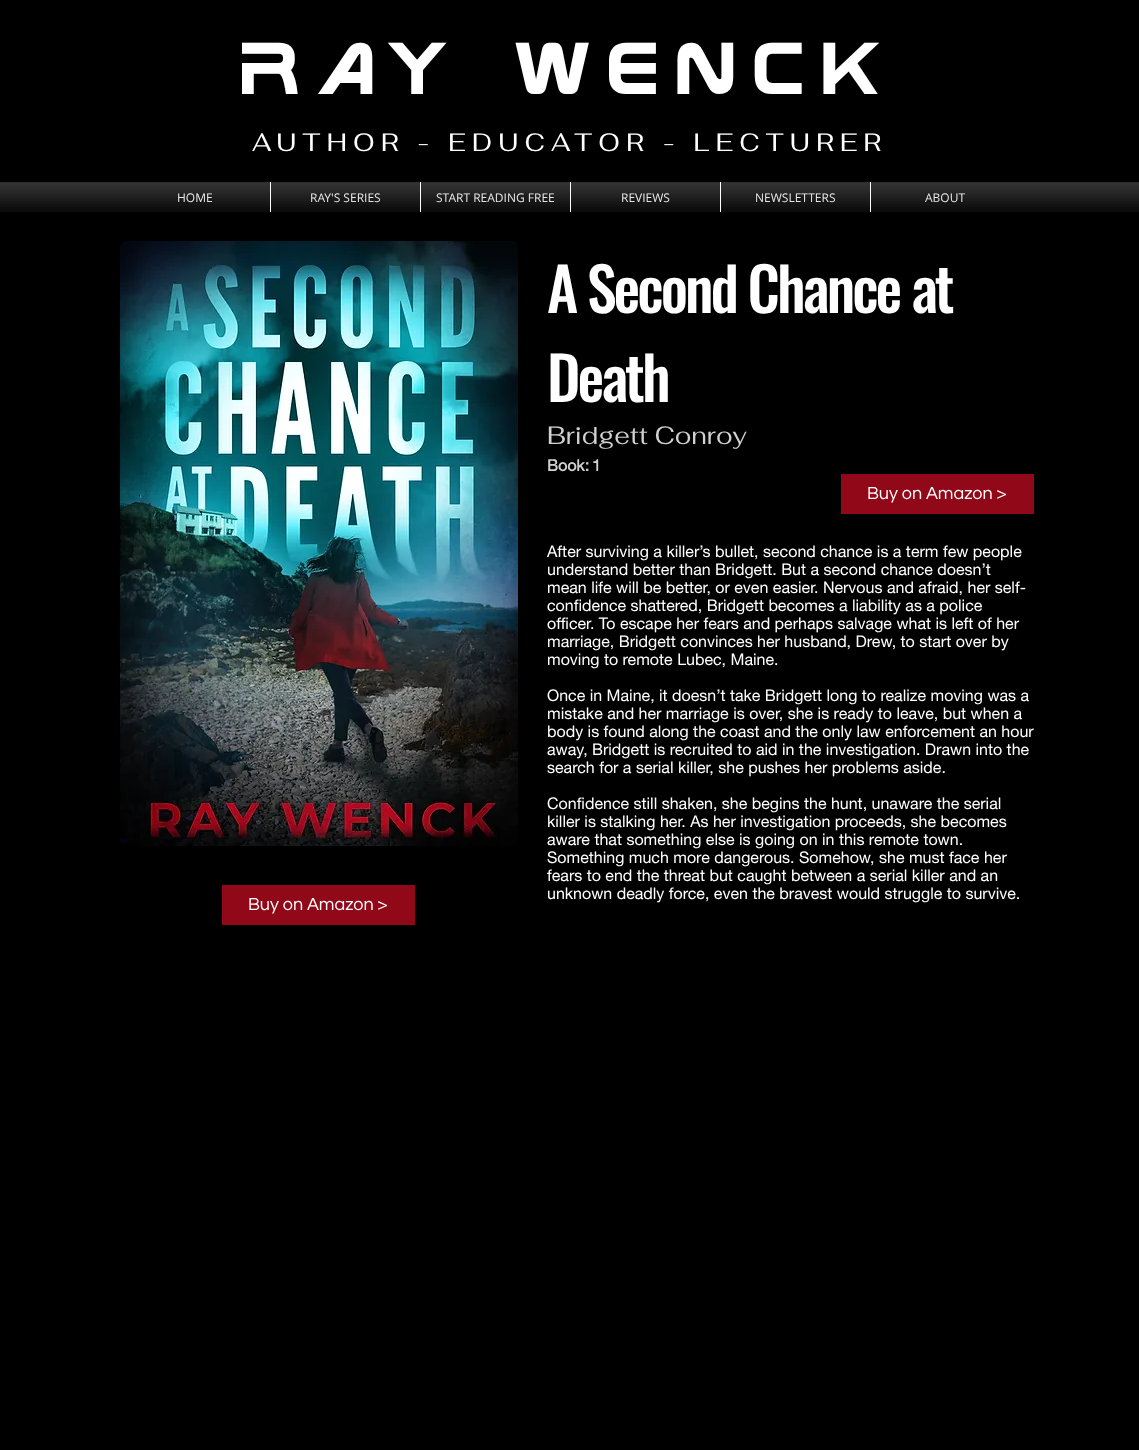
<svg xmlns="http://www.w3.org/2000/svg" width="1139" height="1450">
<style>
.a{font:75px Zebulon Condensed;letter-spacing:18.75px;fill:#fff}
.b{font:25px Fahkwang;letter-spacing:6.25px;fill:#fff}
.c{font:12px Open Sans;fill:#fff}
.d{font:500 60px Oswald;letter-spacing:-3px;fill:#fff}
.e{font:25px Fahkwang;fill:#d1d1d1}
.f{font:bold 16px helvetica neue;fill:#d1d1d1}
.g{font:18px Questrial;fill:#fff}
.h{font:16px helvetica neue;fill:#fff}
</style>
<rect width="100%" height="100%" fill="#000"/>
<image href="1.png" x="0" y="182" width="1139" height="30"/>
<path fill="#000" d="M120 182h150v30H120z"/>
<path fill="#000" d="M271 182h149v30H271z"/>
<path fill="#fff" d="M270 182h1v30H270z"/>
<path fill="#000" d="M421 182h149v30H421z"/>
<path fill="#fff" d="M420 182h1v30H420z"/>
<path fill="#000" d="M571 182h149v30H571z"/>
<path fill="#fff" d="M570 182h1v30H570z"/>
<path fill="#000" d="M721 182h149v30H721z"/>
<path fill="#fff" d="M720 182h1v30H720z"/>
<path fill="#000" d="M871 182h149v30H871z"/>
<path fill="#fff" d="M870 182h1v30H870z"/>
<path fill="#910919" d="M841 474h193v40H841z"/>
<image href="14.png" x="120" y="241" width="398" height="605"/>
<path fill="#910919" d="M222 885h193v40H222z"/>
<text class="a" x="242" y="94">RAY WENCK</text>
<text class="b" x="252" y="151">AUTHOR - EDUCATOR - LECTURER</text>
<text class="c" x="177" y="202">HOME</text>
<image href="2.png" x="120" y="182" width="150" height="30"/>
<image href="3.png" x="177" y="193" width="35" height="10"/>
<text class="c" x="310" y="202">RAY'S SERIES</text>
<image href="4.png" x="271" y="182" width="149" height="30"/>
<image href="5.png" x="310" y="193" width="70" height="10"/>
<text class="c" x="436" y="202">START READING FREE</text>
<image href="6.png" x="421" y="182" width="149" height="30"/>
<image href="7.png" x="436" y="193" width="118" height="10"/>
<text class="c" x="621" y="202">REVIEWS</text>
<image href="8.png" x="571" y="182" width="149" height="30"/>
<image href="9.png" x="621" y="193" width="48" height="10"/>
<text class="c" x="755" y="202">NEWSLETTERS</text>
<image href="10.png" x="721" y="182" width="149" height="30"/>
<image href="11.png" x="755" y="193" width="80" height="10"/>
<text class="c" x="925" y="202">ABOUT</text>
<image href="12.png" x="871" y="182" width="149" height="30"/>
<image href="13.png" x="925" y="193" width="40" height="10"/>
<text class="d" x="547" y="313">A Second Chance at</text>
<text class="d" x="547" y="402">Death</text>
<text class="e" x="547" y="444">Bridgett Conroy</text>
<text class="f" x="547" y="471">Book:</text>
<text class="f" x="592" y="471">1</text>
<text class="g" x="867" y="499">Buy on Amazon &gt;</text>
<text class="h" x="547" y="557">After surviving a killer’s bullet, second chance is a term few people</text>
<text class="h" x="547" y="575">understand better than Bridgett. But a second chance doesn’t</text>
<text class="h" x="547" y="593">mean life will be better, or even easier. Nervous and afraid, her self-</text>
<text class="h" x="547" y="611">confidence shattered, Bridgett becomes a liability as a police</text>
<text class="h" x="547" y="629">officer. To escape her fears and perhaps salvage what is left of her</text>
<text class="h" x="547" y="647">marriage, Bridgett convinces her husband, Drew, to start over by</text>
<text class="h" x="547" y="665">moving to remote Lubec, Maine.</text>
<text class="h" x="547" y="701">Once in Maine, it doesn’t take Bridgett long to realize moving was a</text>
<text class="h" x="547" y="719">mistake and her marriage is over, she is ready to leave, but when a</text>
<text class="h" x="547" y="737">body is found along the coast and the only law enforcement an hour</text>
<text class="h" x="547" y="755">away, Bridgett is recruited to aid in the investigation. Drawn into the</text>
<text class="h" x="547" y="773">search for a serial killer, she pushes her problems aside.</text>
<text class="h" x="547" y="809">Confidence still shaken, she begins the hunt, unaware the serial</text>
<text class="h" x="547" y="827">killer is stalking her. As her investigation proceeds, she becomes</text>
<text class="h" x="547" y="845">aware that something else is going on in this remote town.</text>
<text class="h" x="547" y="863">Something much more dangerous. Somehow, she must face her</text>
<text class="h" x="547" y="881">fears to end the threat but caught between a serial killer and an</text>
<text class="h" x="547" y="899">unknown deadly force, even the bravest would struggle to survive.</text>
<text class="g" x="248" y="910">Buy on Amazon &gt;</text>
</svg>
